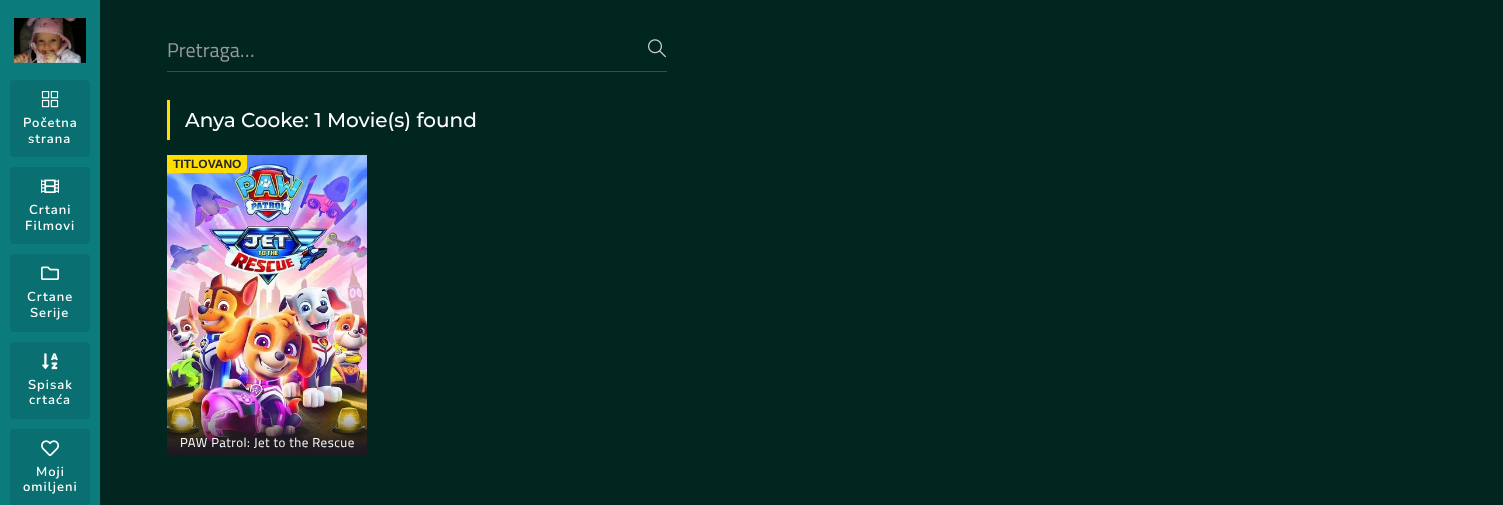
<svg xmlns="http://www.w3.org/2000/svg" width="1503" height="505">
<style>
.a{font:20px Titillium Web;fill:#999}
.b{font:600 13px Nunito;letter-spacing:1px;fill:#fff}
.c{font:500 20px Montserrat;fill:#fff}
.d{font:bold 12px Liberation Sans;fill:#212529}
.e{font:13px Titillium Web;letter-spacing:0.5px;fill:#fff}
</style>
<rect width="100%" height="100%" fill="#00261f"/>
<path fill="#0b7b7c" d="M0 0h100v505H0z"/>
<image href="1.png" x="14" y="18" width="72" height="45"/>
<path fill="#33514c" d="M167 71h500v1H167z"/>
<image href="2.png" x="648" y="39" width="18" height="19"/>
<rect fill="#0a6f70" x="10" y="80" width="80" height="77" rx="4"/>
<image href="3.png" x="41" y="91" width="18" height="17"/>
<rect fill="#0a6f70" x="10" y="167" width="80" height="77" rx="4"/>
<image href="4.png" x="41" y="179" width="18" height="14"/>
<rect fill="#0a6f70" x="10" y="254" width="80" height="78" rx="4"/>
<image href="5.png" x="41" y="266" width="18" height="14"/>
<rect fill="#0a6f70" x="10" y="342" width="80" height="77" rx="4"/>
<image href="6.png" x="42" y="353" width="16" height="17"/>
<rect fill="#0a6f70" x="10" y="429" width="80" height="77" rx="4"/>
<image href="7.png" x="41" y="440" width="18" height="17"/>
<path fill="#ffde00" d="M167 100h3v40H167z"/>
<image href="8.png" x="167" y="155" width="200" height="301"/>
<path fill="#ffde00" d="M167 155h80v12c0 3.5-2.5 6-6 6h-74z"/>
<text class="a" x="167" y="57">Pretraga…</text>
<text class="b" x="23" y="127">Početna</text>
<text class="b" x="28" y="143">strana</text>
<text class="b" x="29" y="214">Crtani</text>
<text class="b" x="25" y="230">Filmovi</text>
<text class="b" x="27" y="301">Crtane</text>
<text class="b" x="30" y="317">Serije</text>
<text class="b" x="28" y="389">Spisak</text>
<text class="b" x="29" y="404">crtaća</text>
<text class="b" x="36" y="476">Moji</text>
<text class="b" x="23" y="491">omiljeni</text>
<text class="c" x="185" y="127">Anya Cooke: 1 Movie(s) found</text>
<text class="d" x="173" y="168">TITLOVANO</text>
<text class="e" x="180" y="447">PAW Patrol: Jet to the Rescue</text>
</svg>
